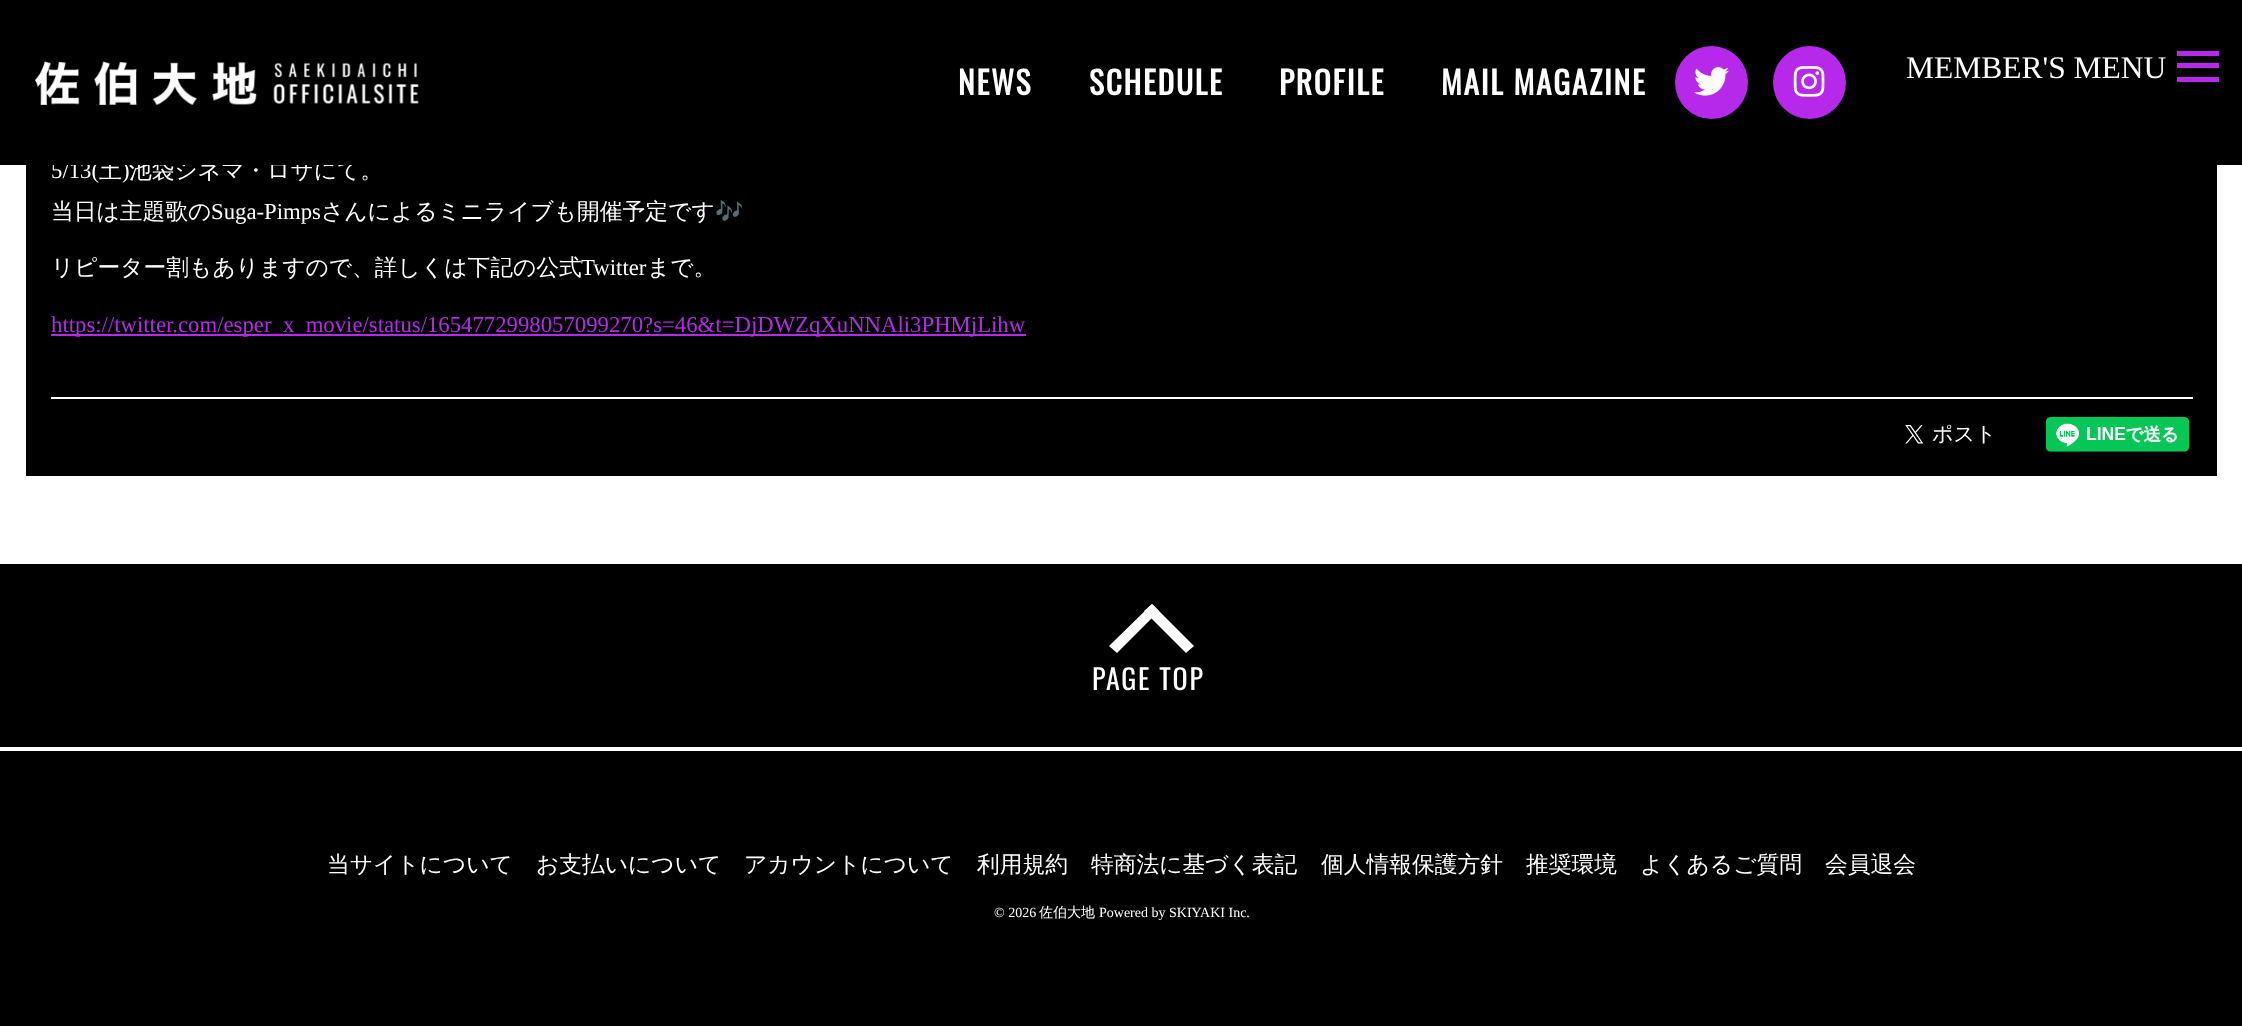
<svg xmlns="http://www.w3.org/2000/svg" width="2242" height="1026">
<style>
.a{font:22.75px Liberation Serif;fill:#fff}
.b{font:500 22.75px WenQuanYi Zen Hei;fill:#fff}
.c{font:31.5px Liberation Serif;fill:#fff}
.d{font:bold 31.5px Oswald;letter-spacing:1.75px;fill:#fff}
.e{font:22.75px Noto Color Emoji;fill:#fff}
.f{font:22.75px Liberation Serif;fill:#b629eb}
.g{font:28px Oswald;letter-spacing:1.75px;fill:#fff}
.h{font:14px Liberation Serif;fill:#fff}
.i{font:500 14px WenQuanYi Zen Hei;fill:#fff}
</style>
<rect width="100%" height="100%" fill="#fff"/>
<path fill="#000" d="M26 165h2191v311H26z"/>
<path fill="#b629eb" d="M51 334h975v2H51z"/>
<path fill="#fff" d="M51 397h2142v2H51z"/>
<image href="4.png" x="1905" y="424" width="86" height="20"/>
<image href="5.png" x="2045" y="416" width="145" height="36"/>
<path fill="#000" d="M0 564h2242v462H0z"/>
<path fill="#fff" d="M1109 646l43-42l7 7l-42 42z"/>
<path fill="#fff" d="M1144 611l8-7l42 42l-8 7z"/>
<path fill="#fff" d="M0 747h2242v4H0z"/>
<text class="a" x="51" y="178">5/13(</text>
<text class="b" x="99" y="178">土</text>
<text class="a" x="122" y="178">)</text>
<text class="b" x="129" y="178">池袋シネマ・ロサにて。</text>
<path fill="#000" d="M0 0h2242v165H0z"/>
<path fill="#b629eb" d="M2177 77h42v5H2177z"/>
<path fill="#b629eb" d="M2177 63h42v5H2177z"/>
<path fill="#b629eb" d="M2177 51h42v5H2177z"/>
<text class="c" x="1906" y="78">MEMBER'S MENU</text>
<image href="1.png" x="35" y="61" width="384" height="44"/>
<text class="d" x="1441" y="95">MAIL MAGAZINE</text>
<text class="d" x="1279" y="95">PROFILE</text>
<text class="d" x="1089" y="95">SCHEDULE</text>
<text class="d" x="958" y="95">NEWS</text>
<circle fill="#b629eb" cx="1809.5" cy="82.5" r="36.5"/>
<image href="3.png" x="1793" y="66" width="32" height="31"/>
<circle fill="#b629eb" cx="1711.5" cy="82.5" r="36.5"/>
<image href="2.png" x="1694" y="67" width="35" height="29"/>
<text class="b" x="51" y="219">当日は主題歌の</text>
<text class="a" x="211" y="219">Suga-Pimps</text>
<text class="b" x="321" y="219">さんによるミニライブも開催予定です</text>
<text class="e" x="715" y="219">🎶</text>
<text class="b" x="51" y="275">リピーター割もありますので、詳しくは下記の公式</text>
<text class="a" x="581" y="275">Twitter</text>
<text class="b" x="647" y="275">まで。</text>
<text class="f" x="51" y="332">https://twitter.com/esper_x_movie/status/1654772998057099270?s=46&amp;t=DjDWZqXuNNAli3PHMjLihw</text>
<text class="g" x="1092" y="690">PAGE TOP</text>
<text class="b" x="327" y="872">当サイトについて</text>
<text class="b" x="536" y="872">お支払いについて</text>
<text class="b" x="744" y="872">アカウントについて</text>
<text class="b" x="977" y="872">利用規約</text>
<text class="b" x="1091" y="872">特商法に基づく表記</text>
<text class="b" x="1321" y="872">個人情報保護方針</text>
<text class="b" x="1526" y="872">推奨環境</text>
<text class="b" x="1640" y="872">よくあるご質問</text>
<text class="b" x="1825" y="872">会員退会</text>
<text class="h" x="994" y="917">© 2026</text>
<text class="i" x="1039" y="917">佐伯大地</text>
<text class="h" x="1099" y="917">Powered by SKIYAKI Inc.</text>
</svg>
